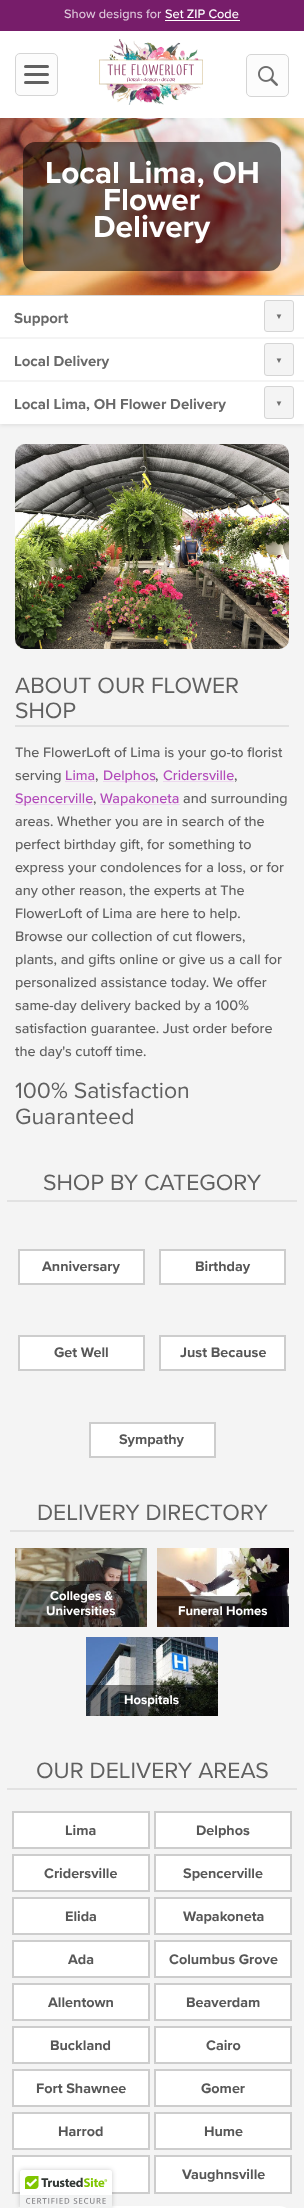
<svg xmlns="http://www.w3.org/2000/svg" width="304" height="2208">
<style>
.a{font:500 12.75px Proxima Nova;fill:#ddc7da}
.b{font:500 12.75px Proxima Nova;fill:#fff}
.c{font:bold 31.5px Proxima Nova;fill:#fff}
.d{font:bold 15px Proxima Nova;fill:#696969}
.e{font:bold 8px Liberation Sans;fill:#707070}
.f{font:23px Proxima Nova;fill:#606060}
.g{font:500 14.4px Proxima Nova;fill:#606060}
.h{font:500 14.4px Proxima Nova;fill:#b24aba}
.i{font:bold 14.4px Proxima Nova;fill:#575757}
.j{font:bold 13px Proxima Nova;fill:#fff}
</style>
<rect width="100%" height="100%" fill="#f4f4f4"/>
<path fill="#fff" d="M0 31h304v87H0z"/>
<path fill="#771d6a" d="M0 0h304v31H0z"/>
<path fill="#fff" d="M165 20h75v1H165z"/>
<image href="1.png" x="99" y="39" width="104" height="66"/>
<rect fill="#fcfcfc" stroke="#d5d5d5" x="15.5" y="53.5" width="42" height="42" rx="4.5"/>
<rect fill="#606060" x="24" y="81" width="25" height="3" rx="1.5"/>
<rect fill="#606060" x="24" y="73" width="25" height="3" rx="1.5"/>
<rect fill="#606060" x="24" y="65" width="25" height="3" rx="1.5"/>
<rect fill="#fcfcfc" stroke="#d5d5d5" x="246.5" y="54.5" width="42" height="42" rx="4.5"/>
<image href="2.png" x="258" y="66" width="20" height="20"/>
<path fill="#0d0d0d1a" filter="blur(2px)" d="M0 296h304v129H0z"/>
<image href="3.png" x="0" y="118" width="304" height="177"/>
<rect fill="#0000008a" x="23" y="142" width="258" height="129" rx="12"/>
<path fill="#fff" d="M0 296h304v128H0z"/>
<path fill="#d5d5d5" d="M0 295h304v1H0z"/>
<rect fill="#f4f4f4" stroke="#d5d5d5" x="264.5" y="300.5" width="29" height="31" rx="2.5"/>
<path fill="#f4f4f4" d="M0 337h304v2H0z"/>
<rect fill="#f4f4f4" stroke="#d5d5d5" x="264.5" y="343.5" width="29" height="32" rx="2.5"/>
<path fill="#f4f4f4" d="M0 380h304v2H0z"/>
<rect fill="#f4f4f4" stroke="#d5d5d5" x="264.5" y="386.5" width="29" height="32" rx="2.5"/>
<image href="4.png" x="15" y="444" width="274" height="205"/>
<path fill="#e1e1e1" d="M15 725h274v2H15z"/>
<path fill="#edd7ef" d="M65 781h30v1H65z"/>
<path fill="#edd7ef" d="M103 781h52v1H103z"/>
<path fill="#edd7ef" d="M163 781h71v1H163z"/>
<path fill="#edd7ef" d="M15 804h78v1H15z"/>
<path fill="#edd7ef" d="M100 804h80v1H100z"/>
<path fill="#e2e2e2" d="M7 1200h290v2H7z"/>
<path fill="#fff" stroke="#cdcdcd" stroke-width="2" d="M19 1250h125v34H19z"/>
<path fill="#fff" stroke="#cdcdcd" stroke-width="2" d="M160 1250h125v34H160z"/>
<path fill="#fff" stroke="#cdcdcd" stroke-width="2" d="M19 1336h125v34H19z"/>
<path fill="#fff" stroke="#cdcdcd" stroke-width="2" d="M160 1336h125v34H160z"/>
<path fill="#fff" stroke="#cdcdcd" stroke-width="2" d="M90 1423h125v34H90z"/>
<path fill="#e2e2e2" d="M10 1530h284v2H10z"/>
<image href="5.png" x="15" y="1548" width="132" height="79"/>
<path fill="#00000080" d="M15 1581h132v46H15z"/>
<image href="6.png" x="157" y="1548" width="132" height="79"/>
<path fill="#00000080" d="M157 1596h132v31H157z"/>
<image href="7.png" x="86" y="1637" width="132" height="79"/>
<path fill="#00000080" d="M86 1685h132v31H86z"/>
<path fill="#e2e2e2" d="M7 1788h290v2H7z"/>
<path fill="#fff" stroke="#cdcdcd" stroke-width="2" d="M13 1812h136v36H13z"/>
<path fill="#fff" stroke="#cdcdcd" stroke-width="2" d="M155 1812h136v36H155z"/>
<path fill="#fff" stroke="#cdcdcd" stroke-width="2" d="M13 1855h136v36H13z"/>
<path fill="#fff" stroke="#cdcdcd" stroke-width="2" d="M155 1855h136v36H155z"/>
<path fill="#fff" stroke="#cdcdcd" stroke-width="2" d="M13 1898h136v36H13z"/>
<path fill="#fff" stroke="#cdcdcd" stroke-width="2" d="M155 1898h136v36H155z"/>
<path fill="#fff" stroke="#cdcdcd" stroke-width="2" d="M13 1941h136v36H13z"/>
<path fill="#fff" stroke="#cdcdcd" stroke-width="2" d="M155 1941h136v36H155z"/>
<path fill="#fff" stroke="#cdcdcd" stroke-width="2" d="M13 1984h136v36H13z"/>
<path fill="#fff" stroke="#cdcdcd" stroke-width="2" d="M155 1984h136v36H155z"/>
<path fill="#fff" stroke="#cdcdcd" stroke-width="2" d="M13 2027h136v36H13z"/>
<path fill="#fff" stroke="#cdcdcd" stroke-width="2" d="M155 2027h136v36H155z"/>
<path fill="#fff" stroke="#cdcdcd" stroke-width="2" d="M13 2070h136v36H13z"/>
<path fill="#fff" stroke="#cdcdcd" stroke-width="2" d="M155 2070h136v36H155z"/>
<path fill="#fff" stroke="#cdcdcd" stroke-width="2" d="M13 2113h136v36H13z"/>
<path fill="#fff" stroke="#cdcdcd" stroke-width="2" d="M155 2113h136v36H155z"/>
<path fill="#fff" stroke="#cdcdcd" stroke-width="2" d="M13 2156h136v37H13z"/>
<path fill="#fff" stroke="#cdcdcd" stroke-width="2" d="M155 2156h136v37H155z"/>
<rect fill="#fff" x="15" y="2206" width="274" height="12" rx="10"/>
<rect fill="#00000033" filter="blur(2.5px)" x="20" y="2170" width="92" height="38" rx="2"/>
<path fill="#fff" d="M22 2170h88c1 0 2 1 2 2v36h-92v-36c0-1 1-2 2-2z"/>
<image href="8.png" x="20" y="2176" width="92" height="32"/>
<text class="a" x="64" y="18">Show designs for</text>
<text class="b" x="165" y="18">Set ZIP Code</text>
<text class="c" x="45" y="183">Local Lima, OH</text>
<text class="c" x="103" y="210">Flower</text>
<text class="c" x="93" y="237">Delivery</text>
<text class="d" x="14" y="323">Support</text>
<text class="e" x="275" y="319">▼</text>
<text class="d" x="14" y="366">Local Delivery</text>
<text class="e" x="275" y="363">▼</text>
<text class="d" x="14" y="409">Local Lima, OH Flower Delivery</text>
<text class="e" x="275" y="406">▼</text>
<text class="f" x="15" y="693">ABOUT OUR FLOWER</text>
<text class="f" x="15" y="718">SHOP</text>
<text class="g" x="15" y="757">The FlowerLoft of Lima is your go-to florist</text>
<text class="g" x="15" y="780">serving</text>
<text class="h" x="65" y="780">Lima</text>
<text class="g" x="95" y="780">,</text>
<text class="h" x="103" y="780">Delphos</text>
<text class="g" x="155" y="780">,</text>
<text class="h" x="163" y="780">Cridersville</text>
<text class="g" x="234" y="780">,</text>
<text class="h" x="15" y="803">Spencerville</text>
<text class="g" x="93" y="803">,</text>
<text class="h" x="100" y="803">Wapakoneta</text>
<text class="g" x="183" y="803">and surrounding</text>
<text class="g" x="15" y="826">areas. Whether you are in search of the</text>
<text class="g" x="15" y="849">perfect birthday gift, for something to</text>
<text class="g" x="15" y="872">express your condolences for a loss, or for</text>
<text class="g" x="15" y="895">any other reason, the experts at The</text>
<text class="g" x="15" y="918">FlowerLoft of Lima are here to help.</text>
<text class="g" x="15" y="941">Browse our collection of cut flowers,</text>
<text class="g" x="15" y="964">plants, and gifts online or give us a call for</text>
<text class="g" x="15" y="987">personalized assistance today. We offer</text>
<text class="g" x="15" y="1010">same-day delivery backed by a 100%</text>
<text class="g" x="15" y="1033">satisfaction guarantee. Just order before</text>
<text class="g" x="15" y="1056">the day's cutoff time.</text>
<text class="f" x="15" y="1098">100% Satisfaction</text>
<text class="f" x="15" y="1124">Guaranteed</text>
<text class="f" x="43" y="1190">SHOP BY CATEGORY</text>
<text class="i" x="42" y="1271">Anniversary</text>
<text class="i" x="195" y="1271">Birthday</text>
<text class="i" x="54" y="1357">Get Well</text>
<text class="i" x="180" y="1357">Just Because</text>
<text class="i" x="119" y="1444">Sympathy</text>
<text class="f" x="37" y="1520">DELIVERY DIRECTORY</text>
<text class="j" x="50" y="1600">Colleges &amp;</text>
<text class="j" x="46" y="1615">Universities</text>
<text class="j" x="178" y="1615">Funeral Homes</text>
<text class="j" x="124" y="1704">Hospitals</text>
<text class="f" x="36" y="1778">OUR DELIVERY AREAS</text>
<text class="i" x="65" y="1835">Lima</text>
<text class="i" x="196" y="1835">Delphos</text>
<text class="i" x="44" y="1878">Cridersville</text>
<text class="i" x="183" y="1878">Spencerville</text>
<text class="i" x="65" y="1921">Elida</text>
<text class="i" x="183" y="1921">Wapakoneta</text>
<text class="i" x="68" y="1964">Ada</text>
<text class="i" x="169" y="1964">Columbus Grove</text>
<text class="i" x="48" y="2007">Allentown</text>
<text class="i" x="186" y="2007">Beaverdam</text>
<text class="i" x="50" y="2050">Buckland</text>
<text class="i" x="206" y="2050">Cairo</text>
<text class="i" x="36" y="2093">Fort Shawnee</text>
<text class="i" x="201" y="2093">Gomer</text>
<text class="i" x="58" y="2136">Harrod</text>
<text class="i" x="204" y="2136">Hume</text>
<text class="i" x="182" y="2179">Vaughnsville</text>
</svg>
